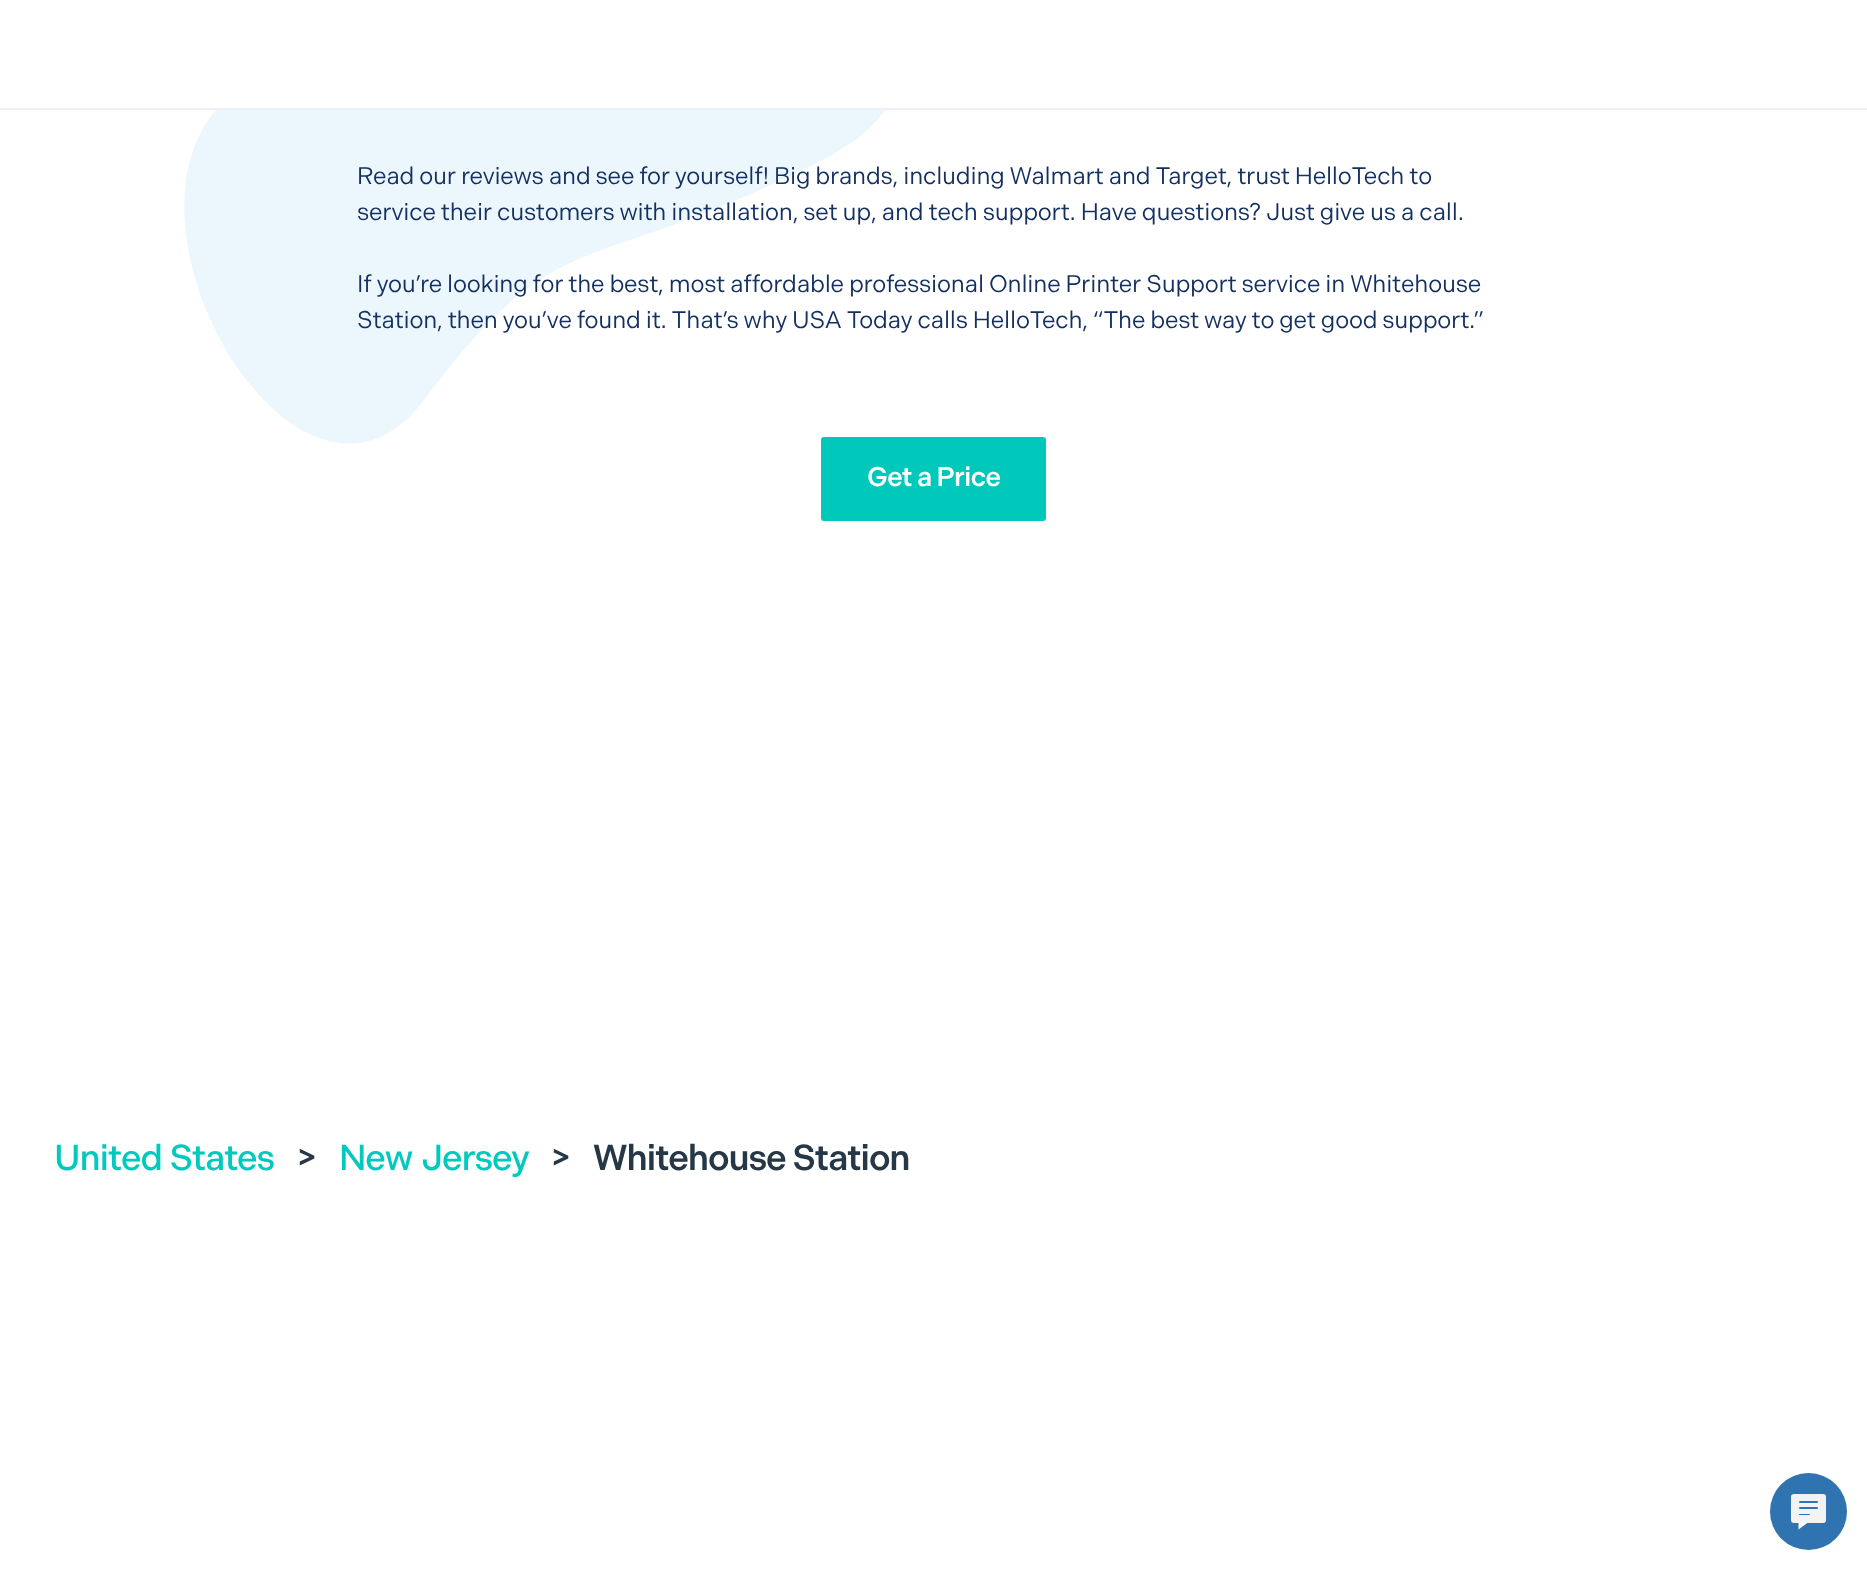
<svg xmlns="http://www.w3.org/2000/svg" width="1867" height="1570">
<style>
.a{font:24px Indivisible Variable;letter-spacing:-0.22px;fill:#133061}
.b{font:500 27px 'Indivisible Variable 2';letter-spacing:-0.75px;fill:#fff}
.c{font:500 36px Indivisible Variable;letter-spacing:-1.1px;fill:#00c9bd}
.d{font:500 36px 'Indivisible Variable 2';letter-spacing:-1.1px;fill:#263746}
</style>
<rect width="100%" height="100%" fill="#fff"/>
<rect fill="#00c9bc" stroke="#00c9bc" stroke-width="2" x="822" y="438" width="223" height="82" rx="2"/>
<path fill="#0b92e914" d="M568-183c-51 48-62 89-72 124c-17 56-28 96-193 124c-267 45-20 523 121 335c140-187 155-115 402-242c112-58 97-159 34-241l-20-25c-79-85-205-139-272-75z"/>
<path fill="#edf1f7" d="M0 108h1867v2H0z"/>
<path fill="#fff" d="M218 0h691v108H218z"/>
<circle fill="#3073b1" cx="1808.5" cy="1511.5" r="38.5"/>
<rect fill="#f3f3f3" x="1791" y="1494" width="35" height="29" rx="3"/>
<path fill="#fbfbfb" d="M1798.5 1529.5v-7h9.5z"/>
<rect fill="#3073b1" x="1799" y="1501" width="19" height="2" rx="1"/>
<rect fill="#3073b1" x="1799" y="1507" width="19" height="2" rx="1"/>
<rect fill="#3073b1" x="1799" y="1514" width="11" height="1" rx="0.5"/>
<text class="a" x="357" y="184">Read our reviews and see for yourself! Big brands, including Walmart and Target, trust HelloTech to</text>
<text class="a" x="357" y="220">service their customers with installation, set up, and tech support. Have questions? Just give us a call.</text>
<text class="a" x="357" y="292">If you’re looking for the best, most affordable professional Online Printer Support service in Whitehouse</text>
<text class="a" x="357" y="328">Station, then you’ve found it. That’s why USA Today calls HelloTech, “The best way to get good support.”</text>
<text class="b" x="867" y="486">Get a Price</text>
<text class="c" x="54" y="1170" word-spacing="1">United States</text>
<text class="d" x="298" y="1170">&gt;</text>
<text class="c" x="339" y="1170" word-spacing="2">New Jersey</text>
<text class="d" x="552" y="1170">&gt;</text>
<text class="d" x="593" y="1170">Whitehouse Station</text>
</svg>
